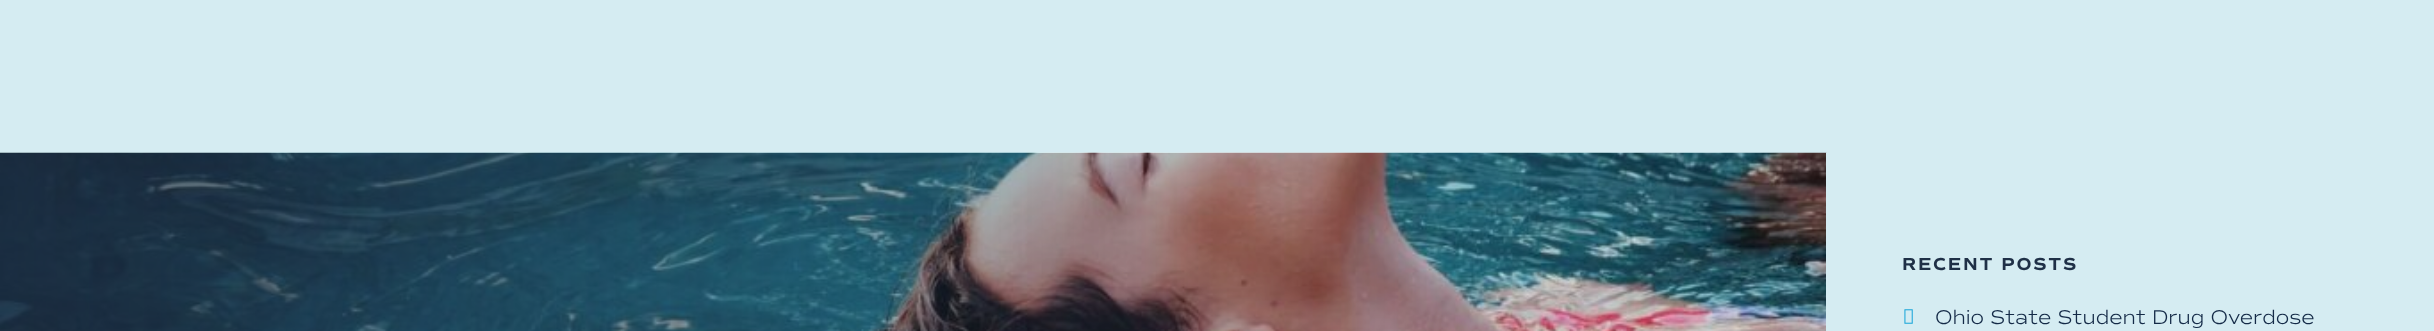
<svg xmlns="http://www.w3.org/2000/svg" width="2434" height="331">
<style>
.a{font:bold 17.75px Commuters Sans;letter-spacing:1.75px;fill:#1f3047}
.b{font:300 20.25px Commuters Sans;fill:#142a47}
</style>
<rect width="100%" height="100%" fill="#d5ecf2"/>
<image href="1.png" x="0" y="152" width="1827" height="179"/>
<path fill="#d5ecf2" d="M1826 153h1v178H1826z"/>
<image href="2.png" x="1904" y="309" width="9" height="15"/>
<text class="a" x="1902" y="270">RECENT POSTS</text>
<text class="b" x="1935" y="324">Ohio State Student Drug Overdose</text>
</svg>
